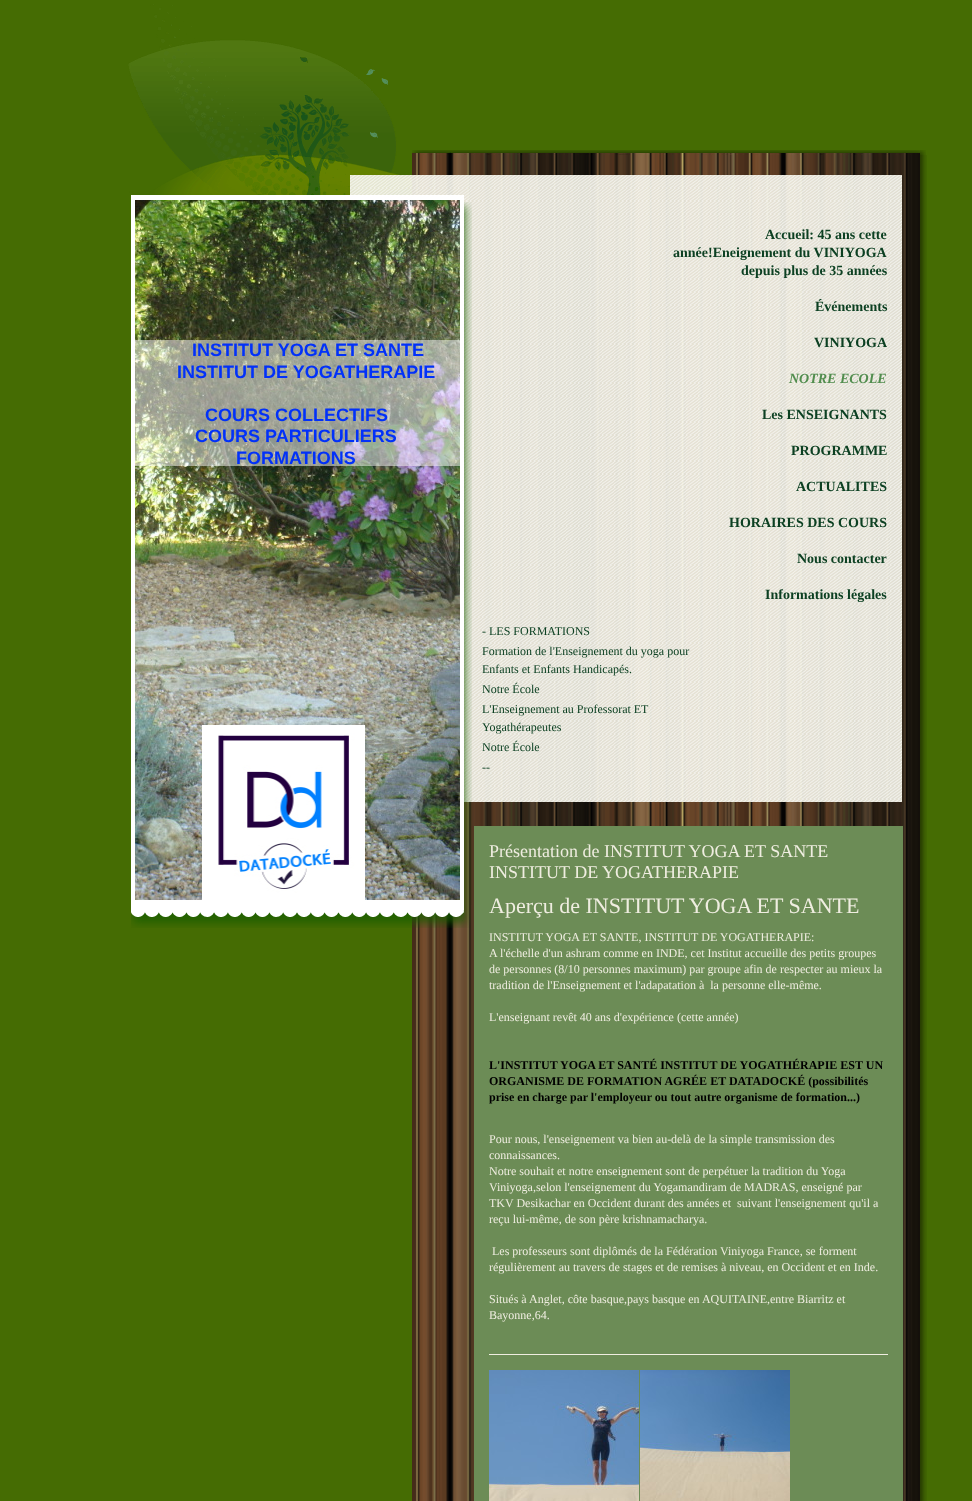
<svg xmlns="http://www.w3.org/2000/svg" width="972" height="1501">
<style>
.a{font:bold 18px Liberation Sans;fill:#0231f9}
.b{font:bold 14px Liberation Serif;fill:#0c4022}
.c{font:italic bold 14px Liberation Serif;fill:#518d4e}
.d{font:12px Liberation Serif;fill:#0c4022}
.e{font:18px Liberation Serif;fill:#efede0}
.f{font:22px Liberation Serif;fill:#efede0}
.g{font:12px Liberation Serif;fill:#efede0}
.h{font:bold 12px Liberation Serif;fill:#000}
</style>
<rect width="100%" height="100%" fill="#456c03"/>
<image href="1.png" x="128" y="4" width="284" height="262"/>
<image href="7.png" x="412" y="155" width="515" height="1346"/>
<image href="8.png" x="350" y="175" width="552" height="627"/>
<path fill="#fff" d="M131 195h333v710H131z"/>
<image href="2.png" x="135" y="200" width="325" height="700"/>
<path fill="#ffffff80" d="M135 340h325v126H135z"/>
<image href="3.png" x="202" y="725" width="163" height="175"/>
<image href="4.png" x="464" y="202" width="8" height="703"/>
<image href="5.png" x="131" y="905" width="340" height="23"/>
<image href="6.png" x="412" y="150" width="514" height="5"/>
<path fill="#6c8c56" d="M474 826h429v675H474z"/>
<path fill="#efede0" d="M489 1354h399v1H489z"/>
<image href="9.png" x="489" y="1370" width="150" height="131"/>
<image href="10.png" x="640" y="1370" width="150" height="131"/>
<text class="a" x="192" y="356">INSTITUT YOGA ET SANTE</text>
<text class="a" x="177" y="378">INSTITUT DE YOGATHERAPIE</text>
<text class="a" x="205" y="421">COURS COLLECTIFS</text>
<text class="a" x="195" y="442">COURS PARTICULIERS</text>
<text class="a" x="236" y="464">FORMATIONS</text>
<text class="b" x="765" y="239">Accueil: 45 ans cette</text>
<text class="b" x="673" y="257">année!Eneignement du VINIYOGA</text>
<text class="b" x="741" y="275">depuis plus de 35 années</text>
<text class="b" x="815" y="311">Événements</text>
<text class="b" x="814" y="347">VINIYOGA</text>
<text class="c" x="789" y="383">NOTRE ECOLE</text>
<text class="b" x="762" y="419">Les ENSEIGNANTS</text>
<text class="b" x="791" y="455">PROGRAMME</text>
<text class="b" x="796" y="491">ACTUALITES</text>
<text class="b" x="729" y="527">HORAIRES DES COURS</text>
<text class="b" x="797" y="563">Nous contacter</text>
<text class="b" x="765" y="599">Informations légales</text>
<text class="d" x="482" y="635">- LES FORMATIONS</text>
<text class="d" x="482" y="655">Formation de l'Enseignement du yoga pour</text>
<text class="d" x="482" y="673">Enfants et Enfants Handicapés.</text>
<text class="d" x="482" y="693">Notre École</text>
<text class="d" x="482" y="713">L'Enseignement au Professorat ET</text>
<text class="d" x="482" y="731">Yogathérapeutes</text>
<text class="d" x="482" y="751">Notre École</text>
<text class="d" x="482" y="771">--</text>
<text class="e" x="489" y="857">Présentation de INSTITUT YOGA ET SANTE</text>
<text class="e" x="489" y="878">INSTITUT DE YOGATHERAPIE</text>
<text class="f" x="489" y="913">Aperçu de INSTITUT YOGA ET SANTE</text>
<text class="g" x="489" y="941">INSTITUT YOGA ET SANTE, INSTITUT DE YOGATHERAPIE:</text>
<text class="g" x="489" y="957">A l'échelle d'un ashram comme en INDE, cet Institut accueille des petits groupes</text>
<text class="g" x="489" y="973">de personnes (8/10 personnes maximum) par groupe afin de respecter au mieux la</text>
<text class="g" xml:space="preserve" x="489" y="989">tradition de l'Enseignement et l'adapatation à  la personne elle-même.</text>
<text class="g" x="489" y="1021">L'enseignant revêt 40 ans d'expérience (cette année)</text>
<text class="h" x="489" y="1069">L'INSTITUT YOGA ET SANTÉ INSTITUT DE YOGATHÉRAPIE EST UN</text>
<text class="h" x="489" y="1085">ORGANISME DE FORMATION AGRÉE ET DATADOCKÉ (possibilités</text>
<text class="h" x="489" y="1101">prise en charge par l'employeur ou tout autre organisme de formation...)</text>
<text class="g" x="489" y="1143">Pour nous, l'enseignement va bien au-delà de la simple transmission des</text>
<text class="g" x="489" y="1159">connaissances.</text>
<text class="g" x="489" y="1175">Notre souhait et notre enseignement sont de perpétuer la tradition du Yoga</text>
<text class="g" x="489" y="1191">Viniyoga,selon l'enseignement du Yogamandiram de MADRAS, enseigné par</text>
<text class="g" xml:space="preserve" x="489" y="1207">TKV Desikachar en Occident durant des années et  suivant l'enseignement qu'il a</text>
<text class="g" x="489" y="1223">reçu lui-même, de son père krishnamacharya.</text>
<text class="g" x="492" y="1255">Les professeurs sont diplômés de la Fédération Viniyoga France, se forment</text>
<text class="g" x="489" y="1271">régulièrement au travers de stages et de remises à niveau, en Occident et en Inde.</text>
<text class="g" x="489" y="1303">Situés à Anglet, côte basque,pays basque en AQUITAINE,entre Biarritz et</text>
<text class="g" x="489" y="1319">Bayonne,64.</text>
</svg>
